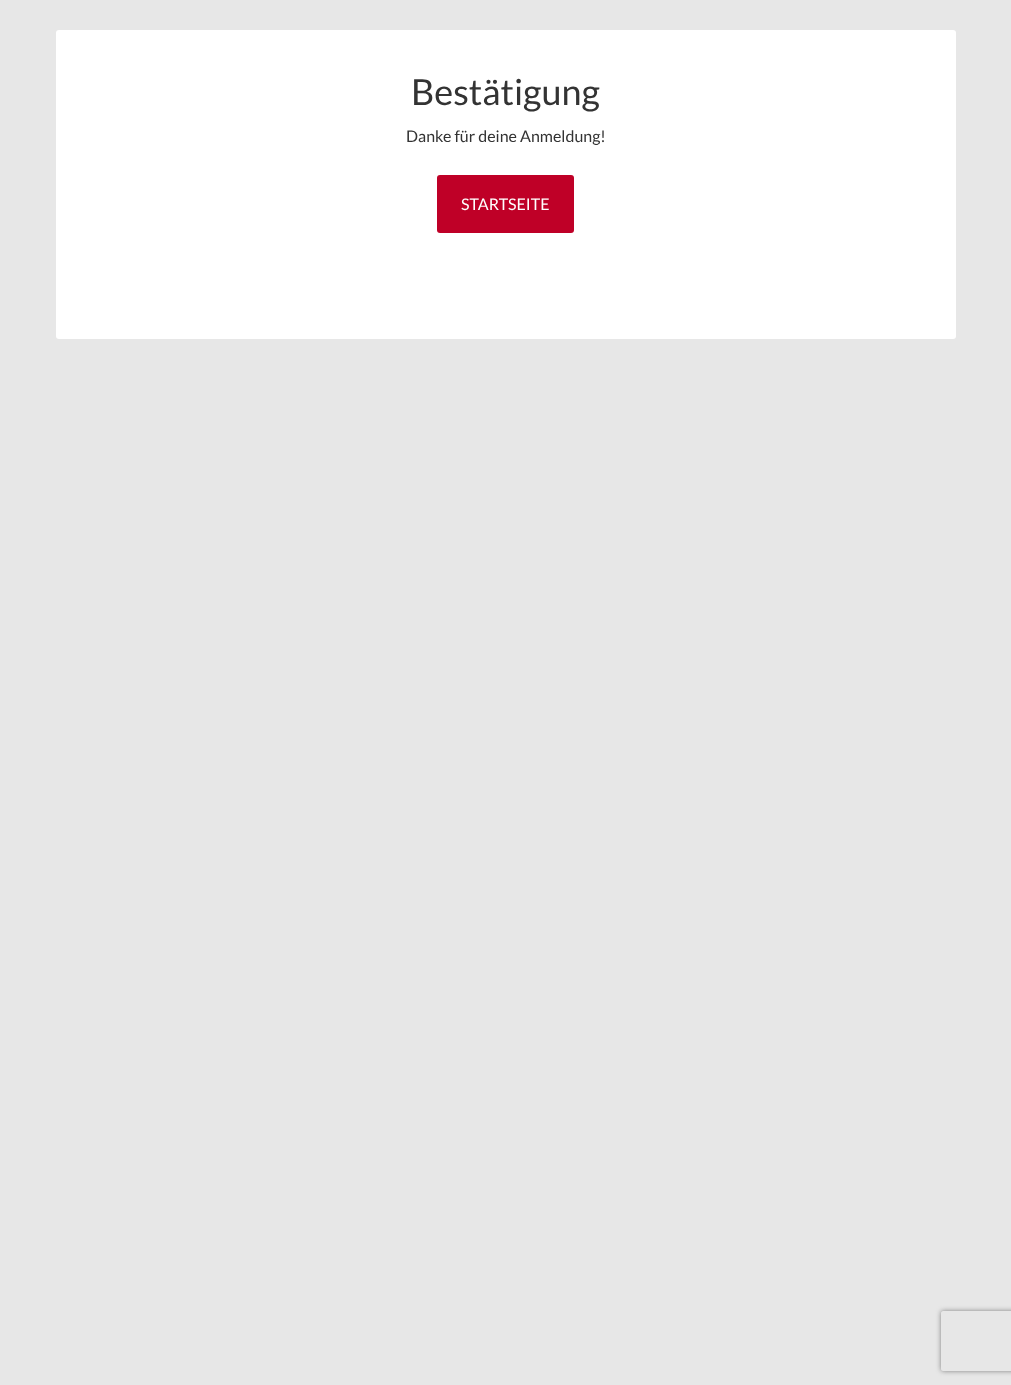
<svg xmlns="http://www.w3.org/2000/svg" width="1011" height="1385">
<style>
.a{font:36px Lato;fill:#333}
.b{font:16px Lato;fill:#333}
.c{font:16px Lato;fill:#fff}
</style>
<defs>
<clipPath id="clip1"><path d="M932 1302h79v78h-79zm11 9h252c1 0 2 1 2 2v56c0 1-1 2-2 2h-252c-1 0-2-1-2-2v-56c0-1 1-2 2-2z" clip-rule="evenodd"/></clipPath>
</defs>
<rect width="100%" height="100%" fill="#e7e7e7"/>
<rect fill="#fff" x="56" y="30" width="900" height="309" rx="3"/>
<rect fill="#bf0027" x="437" y="175" width="137" height="58" rx="3"/>
<g clip-path="url(#clip1)">
<rect fill="#808080" filter="blur(2.5px)" x="941" y="1311" width="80" height="60" rx="2"/>
</g>
<text class="a" x="411" y="105">Bestätigung</text>
<text class="b" x="406" y="142">Danke für deine Anmeldung!</text>
<text class="c" x="461" y="210">STARTSEITE</text>
</svg>
